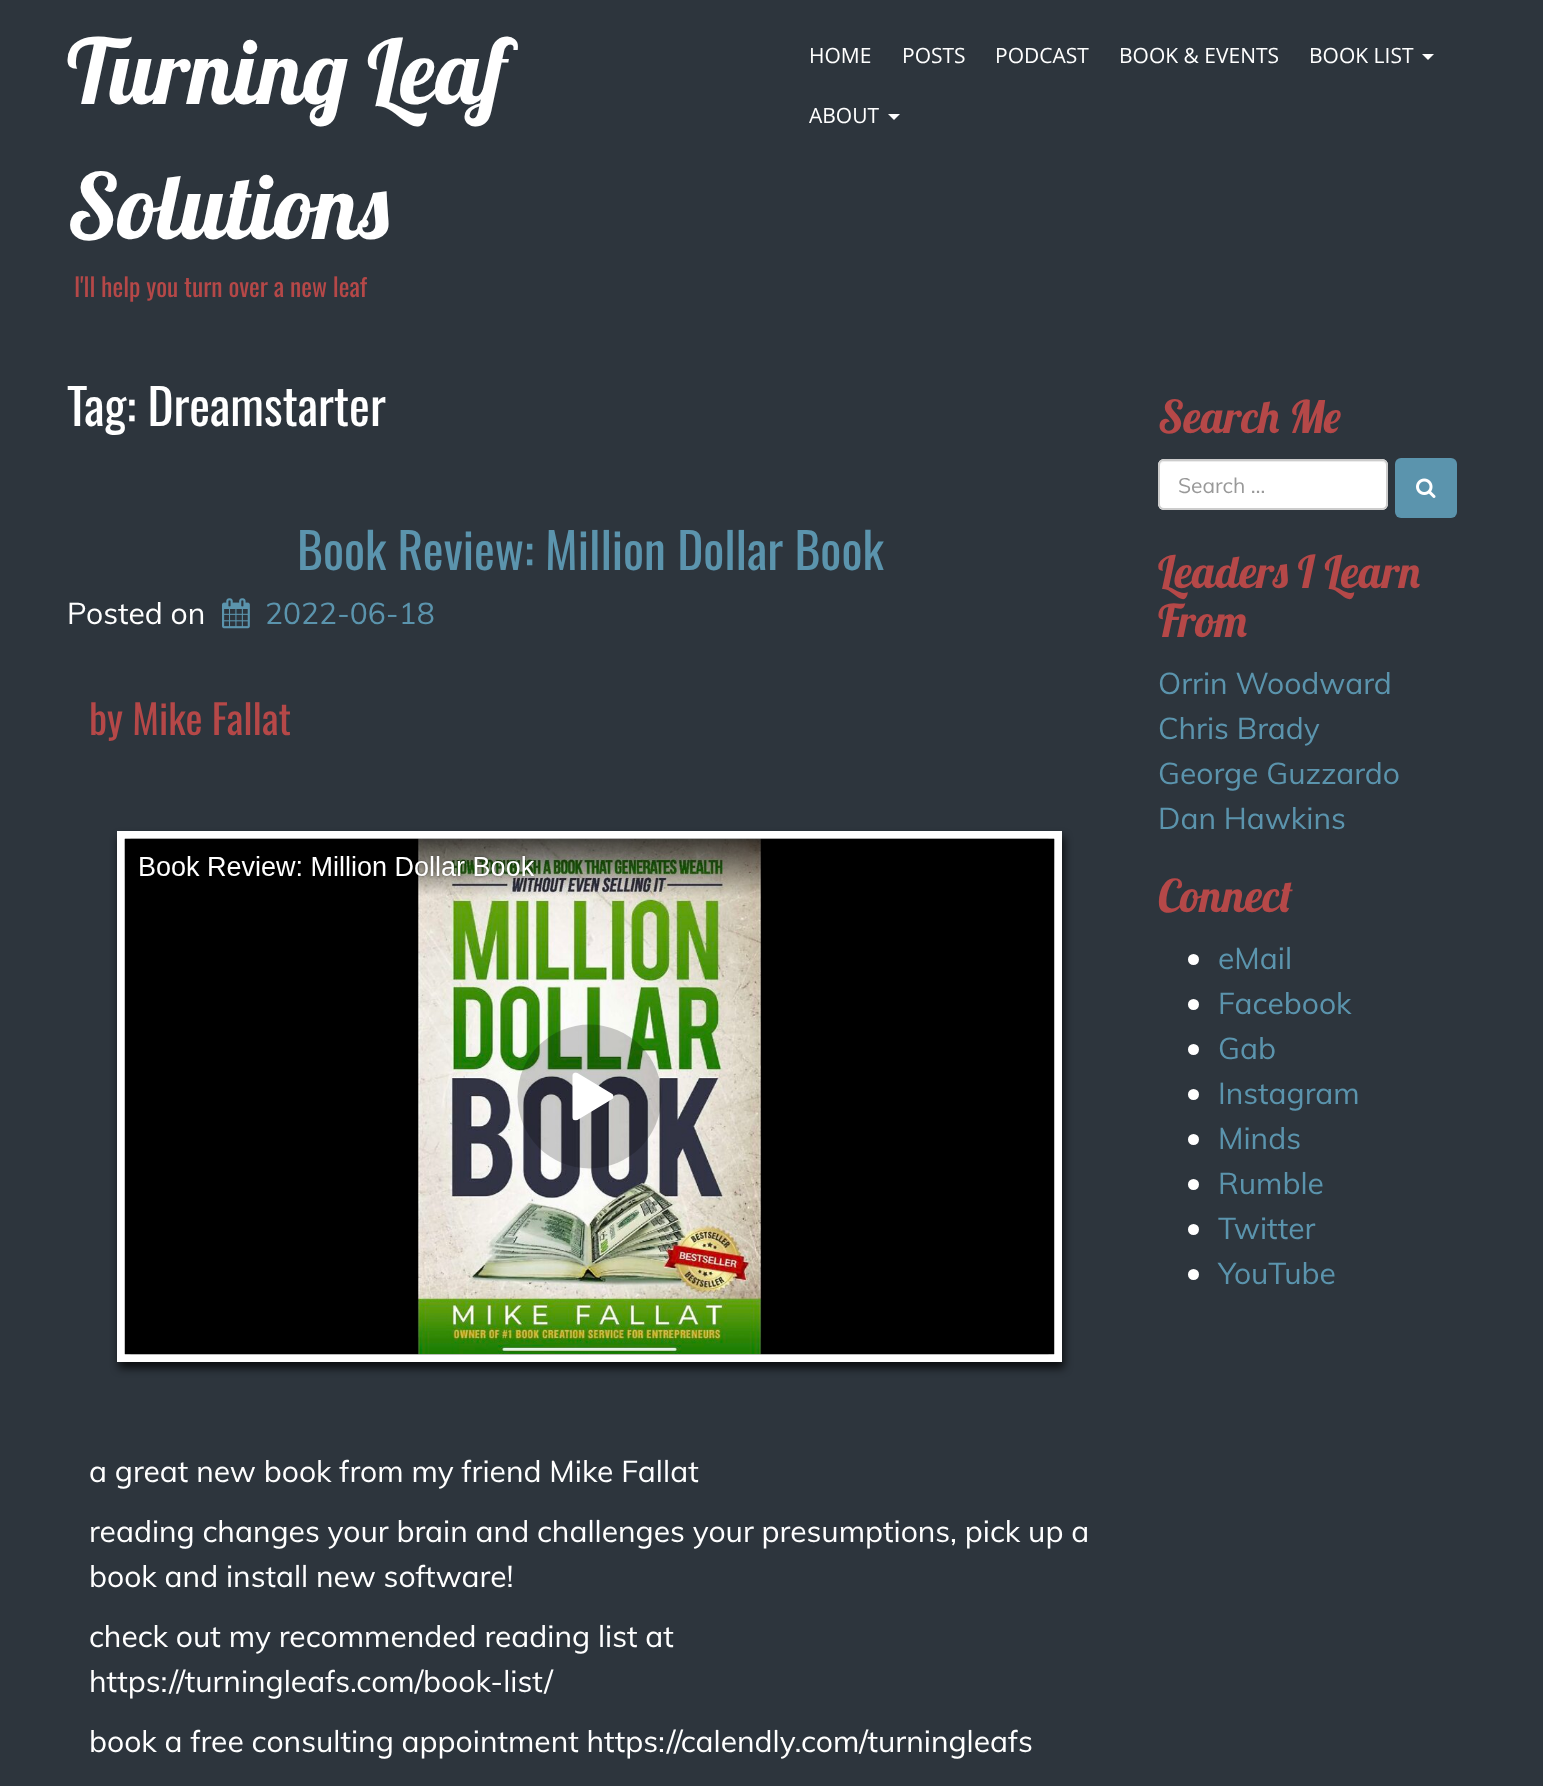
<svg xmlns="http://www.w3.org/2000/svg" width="1543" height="1786">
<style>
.a{font:90px Lobster;fill:#fff}
.b{font:25.5px Oswald;fill:#b54848}
.c{font:21px Open Sans;fill:#fff}
.d{font:49.5px Oswald;fill:#fff}
.e{font:49.5px Oswald;fill:#5b94ad}
.f{font:30px Muli;fill:#fff}
.g{font:30px Muli;fill:#5b94ad}
.h{font:40.5px Oswald;fill:#b54848}
.i{font:45px Lobster;fill:#b54848}
.j{font:21px Muli;fill:#999}
</style>
<rect width="100%" height="100%" fill="#2d353d"/>
<path fill="#fff" d="M1422 54h12l-6 6z"/>
<path fill="#fff" d="M888 114h12l-6 6z"/>
<image href="1.png" x="222" y="598" width="28" height="31"/>
<path fill="#000000bf" filter="blur(4px)" d="M119 837h945v531H119z"/>
<path fill="none" stroke="#fff" stroke-width="8" d="M121 835h937v523H121z"/>
<image href="2.png" x="124" y="838" width="931" height="517"/>
<rect fill="#fff" x="1158" y="459" width="230" height="51" rx="6"/>
<path fill="#ececec" d="M1164 462h218c2 0 4 2 4 4c0-3-2-5-5-5h-216c-3 0-5 2-5 5c0-2 2-4 4-4z"/>
<rect fill="none" stroke="#ccc" stroke-width="2" x="1159" y="460" width="228" height="49" rx="5"/>
<rect fill="#5b94ad" x="1395" y="458" width="62" height="60" rx="6"/>
<image href="3.png" x="1416" y="478" width="20" height="20"/>
<circle fill="#fff" cx="1193.5" cy="959.5" r="5.5"/>
<circle fill="#fff" cx="1193.5" cy="1004.5" r="5.5"/>
<circle fill="#fff" cx="1193.5" cy="1049.5" r="5.5"/>
<circle fill="#fff" cx="1193.5" cy="1094.5" r="5.5"/>
<circle fill="#fff" cx="1193.5" cy="1139.5" r="5.5"/>
<circle fill="#fff" cx="1193.5" cy="1184.5" r="5.5"/>
<circle fill="#fff" cx="1193.5" cy="1229.5" r="5.5"/>
<circle fill="#fff" cx="1193.5" cy="1274.5" r="5.5"/>
<text class="a" x="67" y="104">Turning Leaf</text>
<text class="a" x="67" y="239">Solutions</text>
<text class="b" x="74" y="297">I'll help you turn over a new leaf</text>
<text class="c" x="809" y="63">HOME</text>
<text class="c" x="902" y="63">POSTS</text>
<text class="c" x="995" y="63">PODCAST</text>
<text class="c" x="1119" y="63">BOOK &amp; EVENTS</text>
<text class="c" x="1309" y="63">BOOK LIST</text>
<text class="c" x="809" y="123">ABOUT</text>
<text class="d" x="67" y="426">Tag: Dreamstarter</text>
<text class="e" x="297" y="570">Book Review: Million Dollar Book</text>
<text class="f" x="67" y="624">Posted on</text>
<text class="g" x="265" y="624">2022-06-18</text>
<text class="h" x="89" y="735">by Mike Fallat</text>
<text class="f" x="89" y="1482">a great new book from my friend Mike Fallat</text>
<text class="f" x="89" y="1542">reading changes your brain and challenges your presumptions, pick up a</text>
<text class="f" x="89" y="1587">book and install new software!</text>
<text class="f" x="89" y="1647">check out my recommended reading list at</text>
<text class="f" x="89" y="1692">https://turningleafs.com/book-list/</text>
<text class="f" x="89" y="1752">book a free consulting appointment https://calendly.com/turningleafs</text>
<text class="i" x="1158" y="433">Search Me</text>
<text class="j" x="1178" y="493">Search …</text>
<text class="i" x="1158" y="588">Leaders I Learn</text>
<text class="i" x="1158" y="637">From</text>
<text class="g" x="1158" y="694">Orrin Woodward</text>
<text class="g" x="1158" y="739">Chris Brady</text>
<text class="g" x="1158" y="784">George Guzzardo</text>
<text class="g" x="1158" y="829">Dan Hawkins</text>
<text class="i" x="1158" y="912">Connect</text>
<text class="g" x="1218" y="969">eMail</text>
<text class="g" x="1218" y="1014">Facebook</text>
<text class="g" x="1218" y="1059">Gab</text>
<text class="g" x="1218" y="1104">Instagram</text>
<text class="g" x="1218" y="1149">Minds</text>
<text class="g" x="1218" y="1194">Rumble</text>
<text class="g" x="1218" y="1239">Twitter</text>
<text class="g" x="1218" y="1284">YouTube</text>
</svg>
